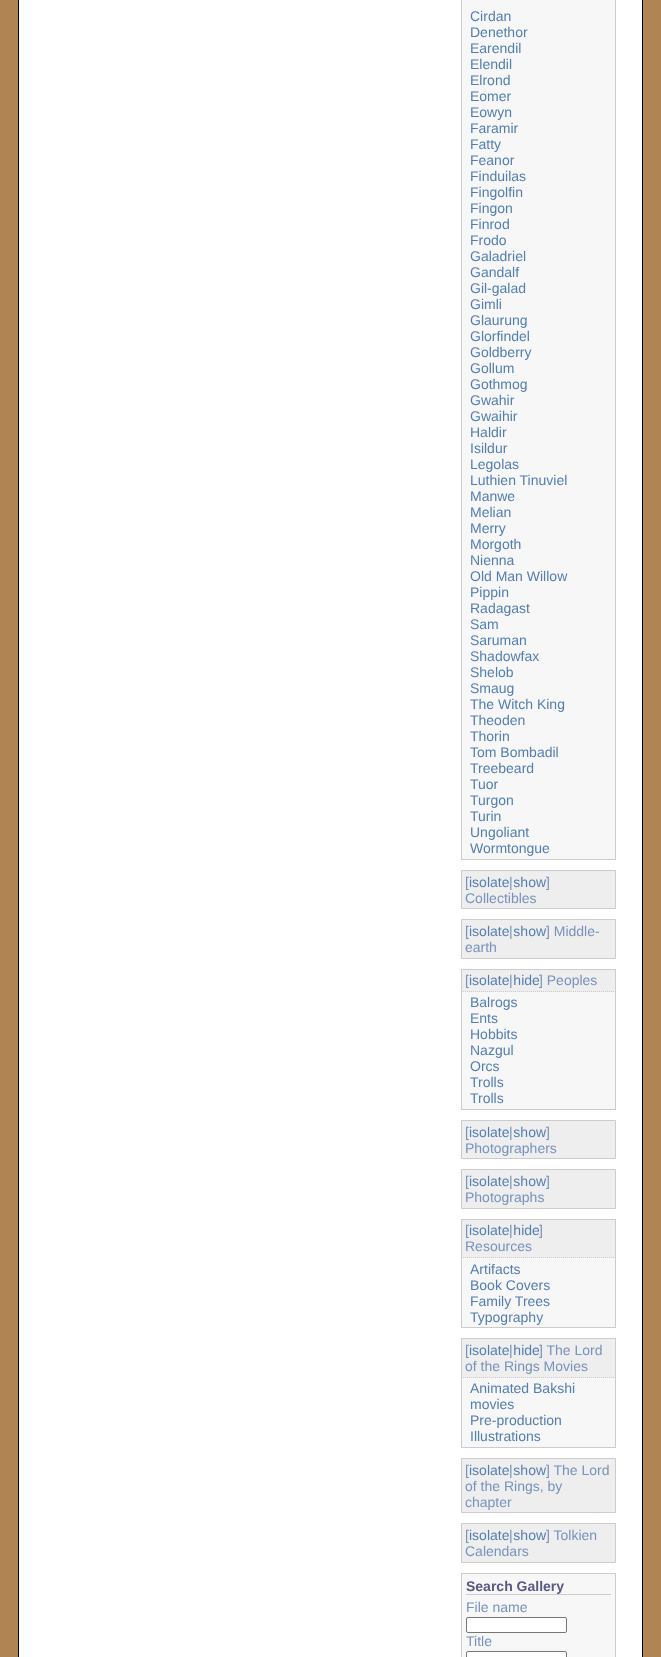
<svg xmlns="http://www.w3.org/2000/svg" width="661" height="1657">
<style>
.a{font:14px Liberation Sans;fill:#537eb0}
.b{font:14px Liberation Sans;fill:#7792bc}
.c{font:bold 14px Liberation Sans;fill:#595983}
</style>
<rect width="100%" height="100%" fill="#b08553"/>
<path fill="#fff" stroke="#000" d="M18.5 -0.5h624v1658H18.5z"/>
<path fill="#f7f7f7" d="M462 0h153v859H462z"/>
<path fill="#ccc" d="M615 0h1v860H615z"/>
<path fill="#ccc" d="M461 859h155v1H461z"/>
<path fill="#ccc" d="M461 0h1v860H461z"/>
<path fill="#eee" stroke="#ccc" d="M461.5 870.5h154v38H461.5z"/>
<path fill="#eee" stroke="#ccc" d="M461.5 919.5h154v39H461.5z"/>
<path fill="#eee" d="M462 970h153v22H462z"/>
<path fill="#ccc" d="M461 969h155v1H461z"/>
<path fill="#ccc" d="M615 969h1v141H615z"/>
<path fill="none" stroke="#ccc" stroke-dasharray="1 1" d="M461 991.5h155"/>
<path fill="#ccc" d="M461 969h1v23H461z"/>
<path fill="#f7f7f7" d="M462 992h153v117H462z"/>
<path fill="#ccc" d="M461 1109h155v1H461z"/>
<path fill="#ccc" d="M461 992h1v118H461z"/>
<path fill="#eee" stroke="#ccc" d="M461.5 1120.5h154v38H461.5z"/>
<path fill="#eee" stroke="#ccc" d="M461.5 1169.5h154v39H461.5z"/>
<path fill="#eee" d="M462 1220h153v38H462z"/>
<path fill="#ccc" d="M461 1219h155v1H461z"/>
<path fill="#ccc" d="M615 1219h1v109H615z"/>
<path fill="none" stroke="#ccc" stroke-dasharray="1 1" d="M461 1257.5h155"/>
<path fill="#ccc" d="M461 1219h1v39H461z"/>
<path fill="#f7f7f7" d="M462 1258h153v69H462z"/>
<path fill="#ccc" d="M461 1327h155v1H461z"/>
<path fill="#ccc" d="M461 1258h1v70H461z"/>
<path fill="#eee" d="M462 1339h153v39H462z"/>
<path fill="#ccc" d="M461 1338h155v1H461z"/>
<path fill="#ccc" d="M615 1338h1v110H615z"/>
<path fill="none" stroke="#ccc" stroke-dasharray="1 1" d="M461 1377.5h155"/>
<path fill="#ccc" d="M461 1338h1v40H461z"/>
<path fill="#f7f7f7" d="M462 1378h153v69H462z"/>
<path fill="#ccc" d="M461 1447h155v1H461z"/>
<path fill="#ccc" d="M461 1378h1v70H461z"/>
<path fill="#eee" stroke="#ccc" d="M461.5 1458.5h154v54H461.5z"/>
<path fill="#eee" stroke="#ccc" d="M461.5 1523.5h154v39H461.5z"/>
<path fill="#f7f7f7" stroke="#ccc" d="M461.5 1573.5h154v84H461.5z"/>
<path fill="#ccc" d="M466 1594h145v1H466z"/>
<rect fill="#fff" stroke="#767676" x="466.5" y="1617.5" width="100" height="15" rx="1.5"/>
<rect fill="#fff" stroke="#767676" x="466.5" y="1651.5" width="100" height="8" rx="1.5"/>
<text class="a" x="470" y="21">Cirdan</text>
<text class="a" x="470" y="37">Denethor</text>
<text class="a" x="470" y="53">Earendil</text>
<text class="a" x="470" y="69">Elendil</text>
<text class="a" x="470" y="85">Elrond</text>
<text class="a" x="470" y="101">Eomer</text>
<text class="a" x="470" y="117">Eowyn</text>
<text class="a" x="470" y="133">Faramir</text>
<text class="a" x="470" y="149">Fatty</text>
<text class="a" x="470" y="165">Feanor</text>
<text class="a" x="470" y="181">Finduilas</text>
<text class="a" x="470" y="197">Fingolfin</text>
<text class="a" x="470" y="213">Fingon</text>
<text class="a" x="470" y="229">Finrod</text>
<text class="a" x="470" y="245">Frodo</text>
<text class="a" x="470" y="261">Galadriel</text>
<text class="a" x="470" y="277">Gandalf</text>
<text class="a" x="470" y="293">Gil-galad</text>
<text class="a" x="470" y="309">Gimli</text>
<text class="a" x="470" y="325">Glaurung</text>
<text class="a" x="470" y="341">Glorfindel</text>
<text class="a" x="470" y="357">Goldberry</text>
<text class="a" x="470" y="373">Gollum</text>
<text class="a" x="470" y="389">Gothmog</text>
<text class="a" x="470" y="405">Gwahir</text>
<text class="a" x="470" y="421">Gwaihir</text>
<text class="a" x="470" y="437">Haldir</text>
<text class="a" x="470" y="453">Isildur</text>
<text class="a" x="470" y="469">Legolas</text>
<text class="a" x="470" y="485">Luthien Tinuviel</text>
<text class="a" x="470" y="501">Manwe</text>
<text class="a" x="470" y="517">Melian</text>
<text class="a" x="470" y="533">Merry</text>
<text class="a" x="470" y="549">Morgoth</text>
<text class="a" x="470" y="565">Nienna</text>
<text class="a" x="470" y="581">Old Man Willow</text>
<text class="a" x="470" y="597">Pippin</text>
<text class="a" x="470" y="613">Radagast</text>
<text class="a" x="470" y="629">Sam</text>
<text class="a" x="470" y="645">Saruman</text>
<text class="a" x="470" y="661">Shadowfax</text>
<text class="a" x="470" y="677">Shelob</text>
<text class="a" x="470" y="693">Smaug</text>
<text class="a" x="470" y="709">The Witch King</text>
<text class="a" x="470" y="725">Theoden</text>
<text class="a" x="470" y="741">Thorin</text>
<text class="a" x="470" y="757">Tom Bombadil</text>
<text class="a" x="470" y="773">Treebeard</text>
<text class="a" x="470" y="789">Tuor</text>
<text class="a" x="470" y="805">Turgon</text>
<text class="a" x="470" y="821">Turin</text>
<text class="a" x="470" y="837">Ungoliant</text>
<text class="a" x="470" y="853">Wormtongue</text>
<text class="b" x="465" y="887">[</text>
<text class="a" x="469" y="887">isolate show</text>
<text class="b" x="509" y="887">|</text>
<text class="b" x="546" y="887">]</text>
<text class="b" x="465" y="903">Collectibles</text>
<text class="b" x="465" y="936">[</text>
<text class="a" x="469" y="936">isolate show</text>
<text class="b" x="509" y="936">|</text>
<text class="b" x="546" y="936">] Middle-</text>
<text class="b" x="465" y="952">earth</text>
<text class="b" x="465" y="985">[</text>
<text class="a" x="469" y="985">isolate hide</text>
<text class="b" x="509" y="985">|</text>
<text class="b" x="539" y="985">] Peoples</text>
<text class="a" x="470" y="1007">Balrogs</text>
<text class="a" x="470" y="1023">Ents</text>
<text class="a" x="470" y="1039">Hobbits</text>
<text class="a" x="470" y="1055">Nazgul</text>
<text class="a" x="470" y="1071">Orcs</text>
<text class="a" x="470" y="1087">Trolls</text>
<text class="a" x="470" y="1103">Trolls</text>
<text class="b" x="465" y="1137">[</text>
<text class="a" x="469" y="1137">isolate show</text>
<text class="b" x="509" y="1137">|</text>
<text class="b" x="546" y="1137">]</text>
<text class="b" x="465" y="1153">Photographers</text>
<text class="b" x="465" y="1186">[</text>
<text class="a" x="469" y="1186">isolate show</text>
<text class="b" x="509" y="1186">|</text>
<text class="b" x="546" y="1186">]</text>
<text class="b" x="465" y="1202">Photographs</text>
<text class="b" x="465" y="1235">[</text>
<text class="a" x="469" y="1235">isolate hide</text>
<text class="b" x="509" y="1235">|</text>
<text class="b" x="539" y="1235">]</text>
<text class="b" x="465" y="1251">Resources</text>
<text class="a" x="470" y="1274">Artifacts</text>
<text class="a" x="470" y="1290">Book Covers</text>
<text class="a" x="470" y="1306">Family Trees</text>
<text class="a" x="470" y="1322">Typography</text>
<text class="b" x="465" y="1355">[</text>
<text class="a" x="469" y="1355">isolate hide</text>
<text class="b" x="509" y="1355">|</text>
<text class="b" x="539" y="1355">] The Lord</text>
<text class="b" x="465" y="1371">of the Rings Movies</text>
<text class="a" x="470" y="1393">Animated Bakshi</text>
<text class="a" x="470" y="1409">movies</text>
<text class="a" x="470" y="1425">Pre-production</text>
<text class="a" x="470" y="1441">Illustrations</text>
<text class="b" x="465" y="1475">[</text>
<text class="a" x="469" y="1475">isolate show</text>
<text class="b" x="509" y="1475">|</text>
<text class="b" x="546" y="1475">] The Lord</text>
<text class="b" x="465" y="1491">of the Rings, by</text>
<text class="b" x="465" y="1507">chapter</text>
<text class="b" x="465" y="1540">[</text>
<text class="a" x="469" y="1540">isolate show</text>
<text class="b" x="509" y="1540">|</text>
<text class="b" x="546" y="1540">] Tolkien</text>
<text class="b" x="465" y="1556">Calendars</text>
<text class="c" x="466" y="1591">Search Gallery</text>
<text class="b" x="466" y="1612">File name</text>
<text class="b" x="466" y="1646">Title</text>
</svg>
